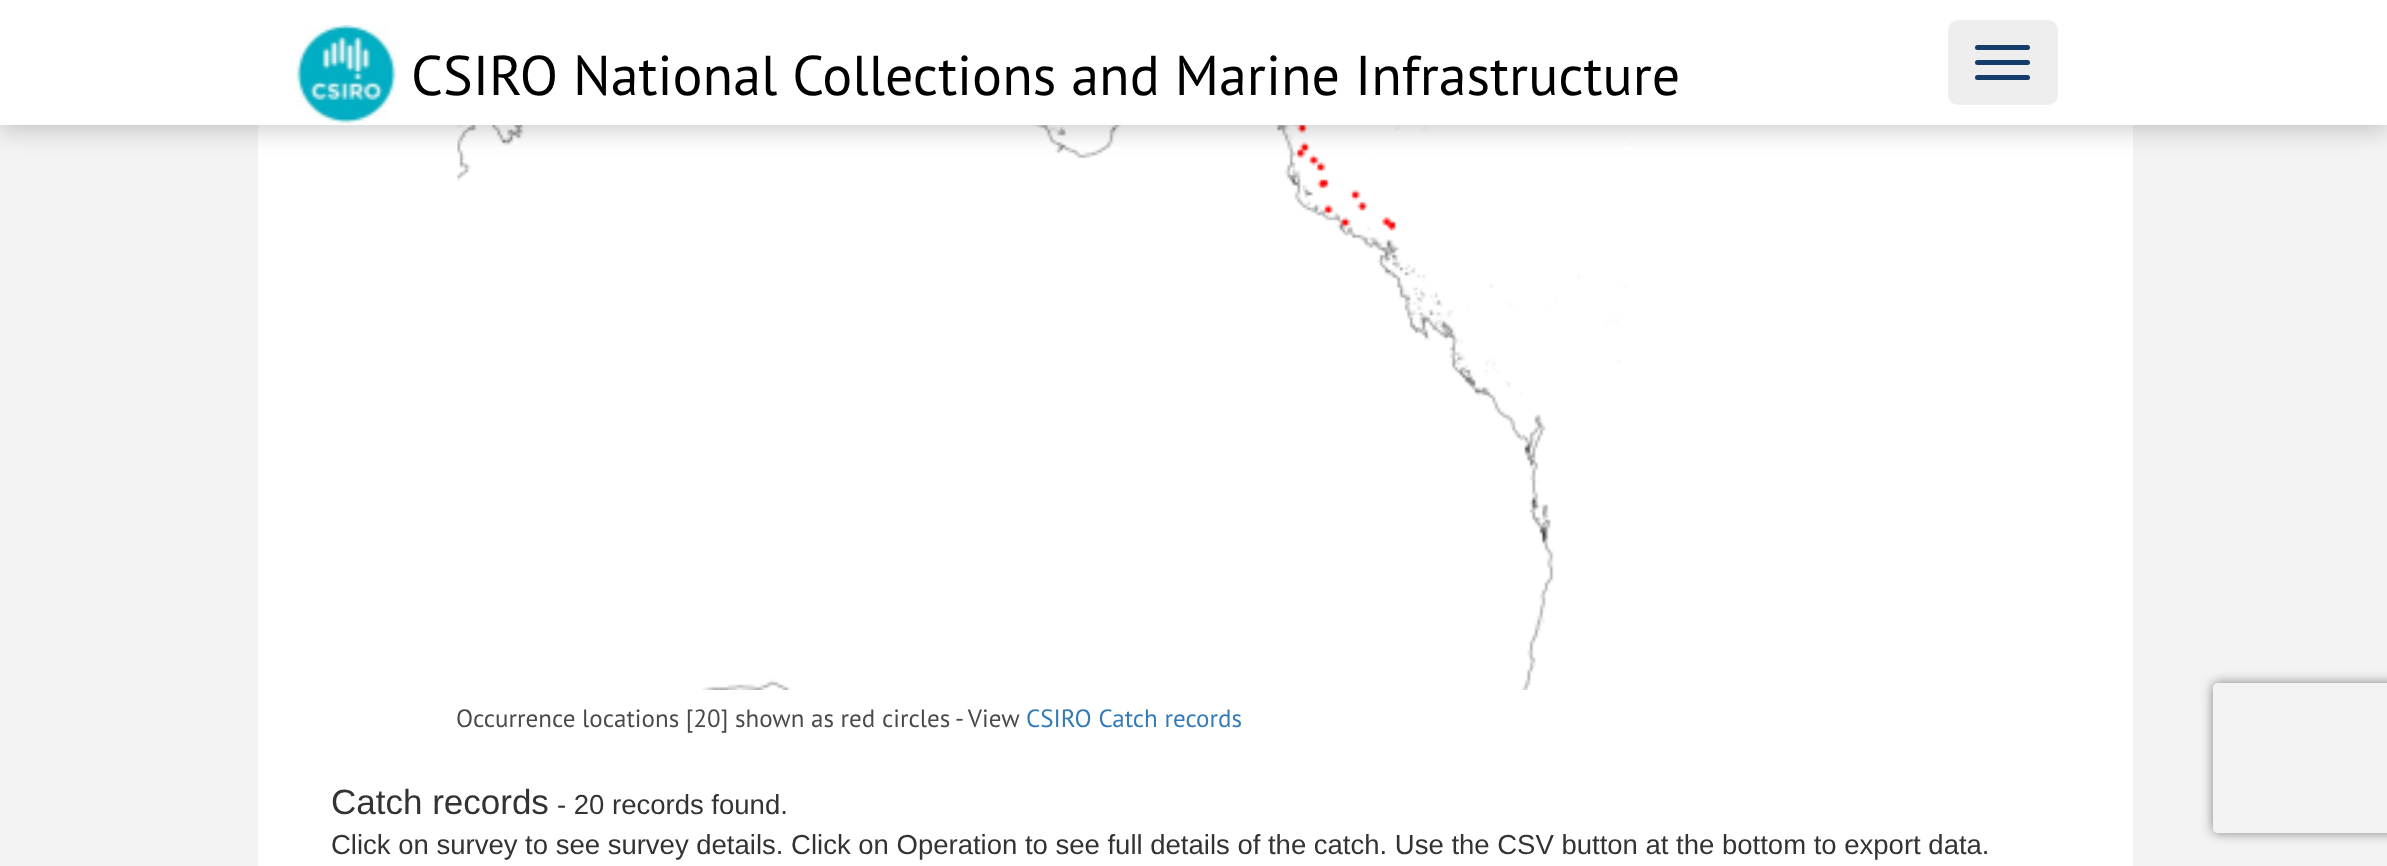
<svg xmlns="http://www.w3.org/2000/svg" width="2387" height="866">
<style>
.a{font:56px PT Sans;fill:#000}
.b{font:25px PT Sans;fill:#4a4a4a}
.c{font:25px PT Sans;fill:#337ab7}
.d{font:35px Liberation Sans;fill:#333}
.e{font:27.5px Liberation Sans;fill:#333}
</style>
<defs>
<clipPath id="clip1"><path d="M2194 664h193v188h-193zm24 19h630c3 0 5 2 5 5v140c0 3-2 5-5 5h-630c-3 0-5-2-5-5v-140c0-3 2-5 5-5z" clip-rule="evenodd"/></clipPath>
</defs>
<rect width="100%" height="100%" fill="#f3f3f3"/>
<path fill="#fff" d="M258 125h1875v741H258z"/>
<image href="2.png" x="457" y="125" width="1175" height="565"/>
<path fill="#00000033" filter="blur(12.5px)" d="M0 5h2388v125H0z"/>
<path fill="#fff" d="M0 0h2387v125H0z"/>
<image href="1.png" x="296" y="25" width="101" height="99"/>
<rect fill="#eee" x="1948" y="20" width="110" height="85" rx="10"/>
<rect fill="#153d6b" x="1975" y="45" width="55" height="5" rx="2.5"/>
<rect fill="#153d6b" x="1975" y="60" width="55" height="5" rx="2.5"/>
<rect fill="#153d6b" x="1975" y="75" width="55" height="5" rx="2.5"/>
<g clip-path="url(#clip1)">
<rect fill="#808080" filter="blur(6px)" x="2213" y="683" width="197" height="150" rx="5"/>
</g>
<text class="a" x="411" y="95">CSIRO National Collections and Marine Infrastructure</text>
<text class="b" x="456" y="727">Occurrence locations [20] shown as red circles - View</text>
<text class="c" x="1026" y="727">CSIRO Catch records</text>
<text class="d" x="331" y="814">Catch records</text>
<text class="e" x="557" y="814">- 20 records found.</text>
<text class="e" x="331" y="854">Click on survey to see survey details. Click on Operation to see full details of the catch. Use the CSV button at the bottom to export data.</text>
</svg>
